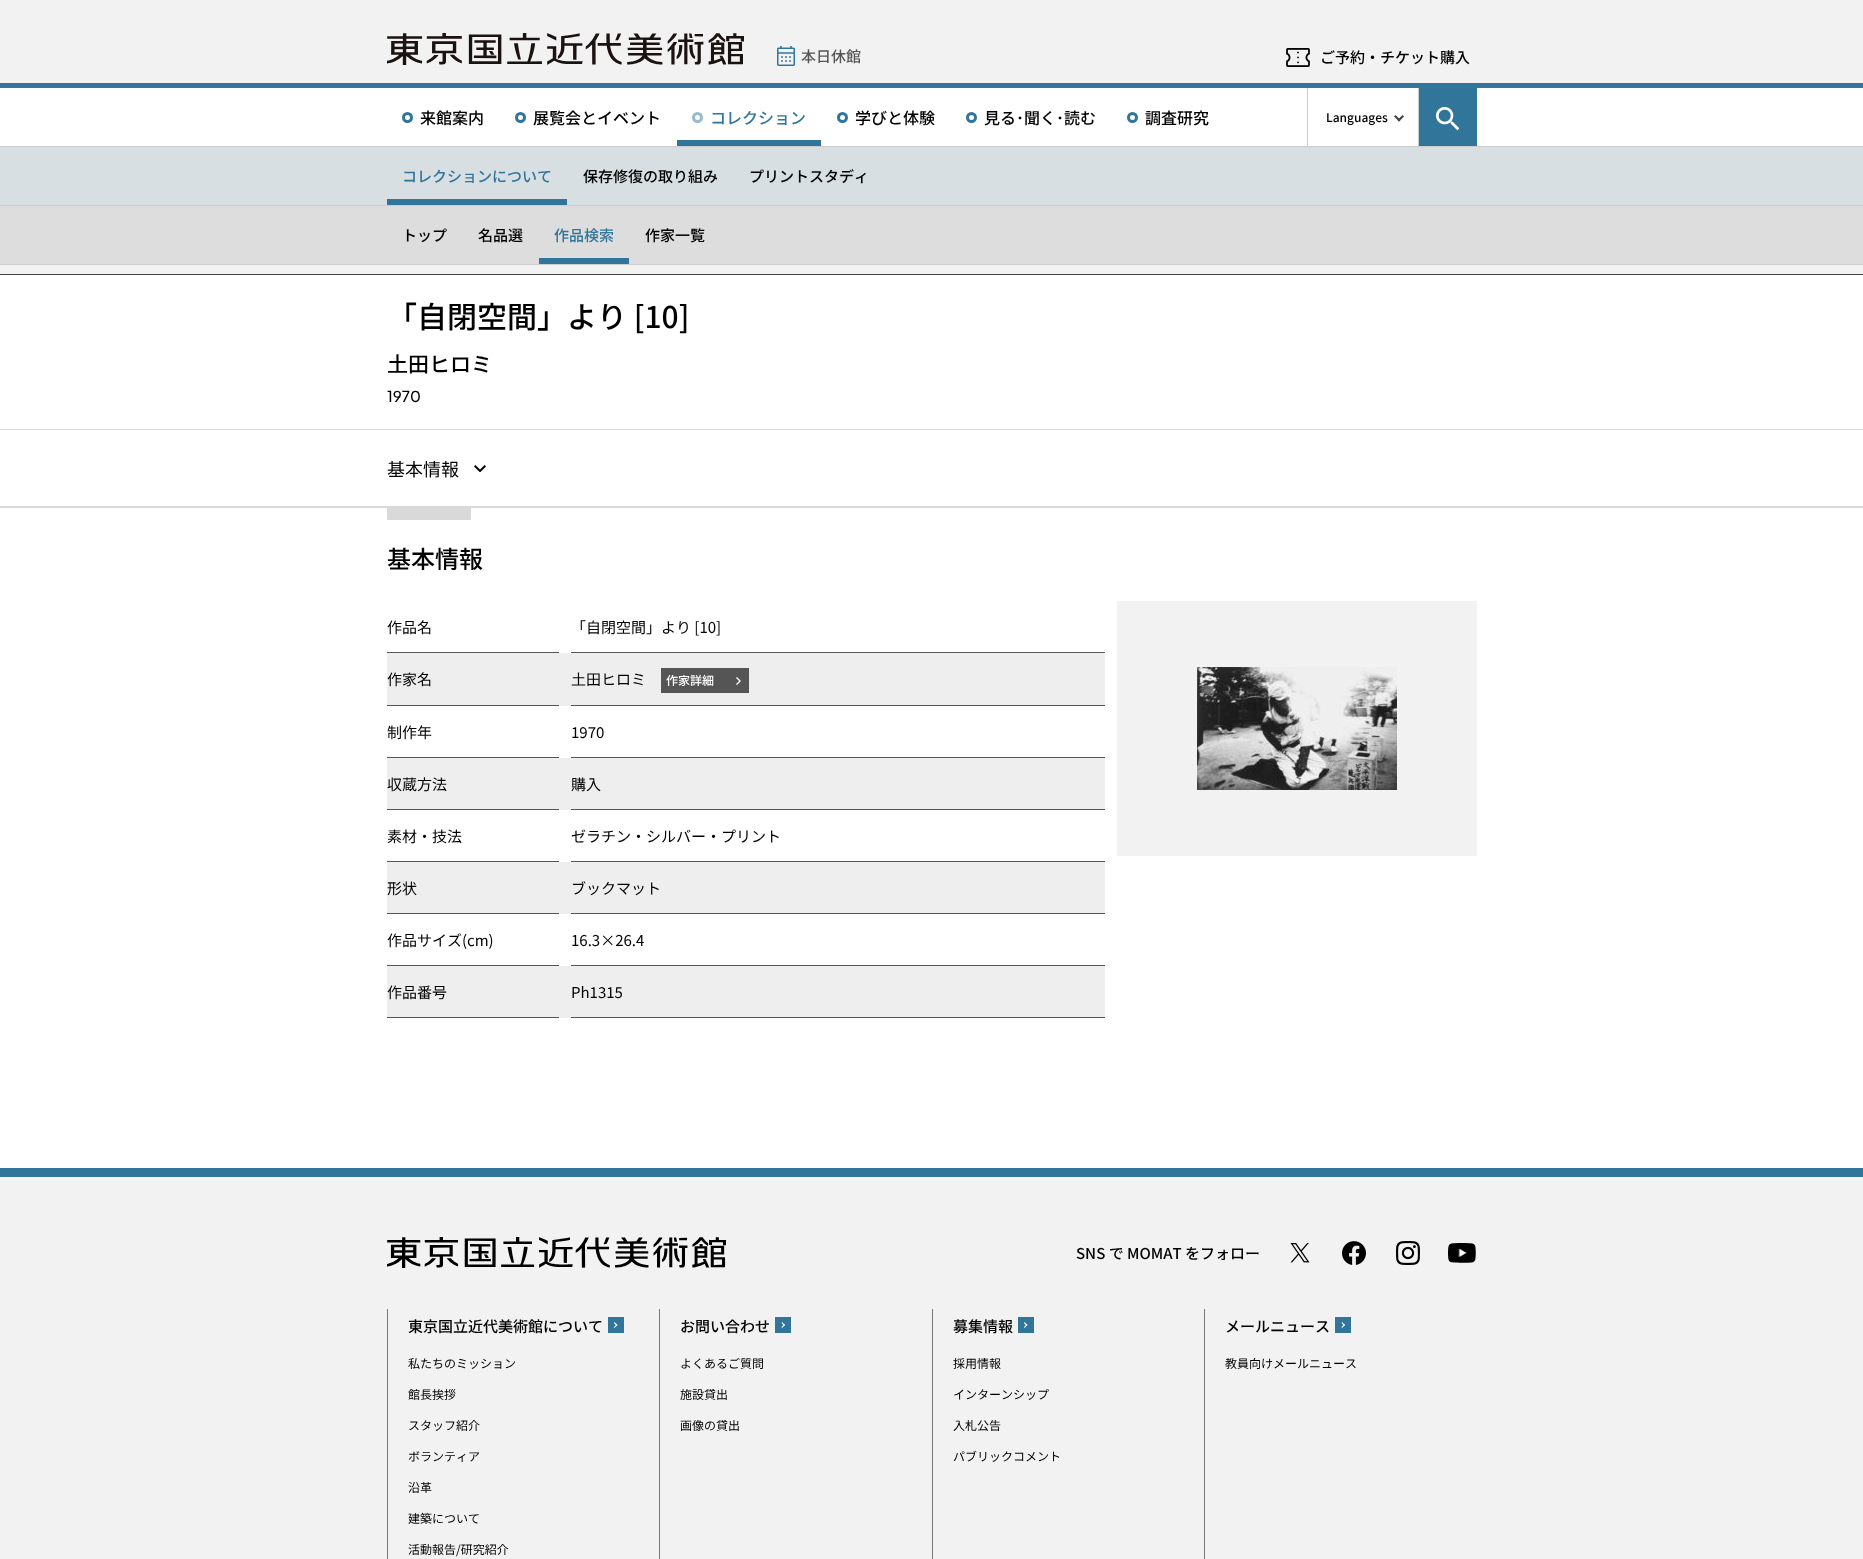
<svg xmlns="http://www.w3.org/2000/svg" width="1863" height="1559">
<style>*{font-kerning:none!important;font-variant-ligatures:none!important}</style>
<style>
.a{font:500 15px Noto Sans JP;fill:#555}
.b{font:500 15px Noto Sans JP;fill:#000}
.c{font:500 16px Noto Sans JP;fill:#000}
.d{font:500 16px Noto Sans JP;fill:#31759a}
.e{font:500 12px Noto Sans JP;fill:#000}
.f{font:500 15px Noto Sans JP;fill:#31759a}
.g{font:500 30px Noto Sans JP;fill:#000}
.h{font:500 21px Noto Sans JP;fill:#000}
.i{font:500 15px Plus Jakarta Sans;fill:#000}
.j{font:18px Noto Sans JP;fill:#000}
.k{font:500 24px Noto Sans JP;fill:#000}
.l{font:15px Noto Sans JP;fill:#000}
.m{font:500 12px Noto Sans JP;fill:#fff}
.n{font:12px Noto Sans JP;fill:#000}
</style>
<rect width="100%" height="100%" fill="#f2f2f2"/>
<path fill="#31759a" d="M0 83h1863v5H0z"/>
<image href="1.png" x="387" y="33" width="357" height="32"/>
<image href="2.png" x="777" y="46" width="18" height="20"/>
<image href="3.png" x="1286" y="48" width="24" height="19"/>
<path fill="#fff" d="M0 88h1863v58H0z"/>
<path fill="#ccc" d="M0 146h1863v1H0z"/>
<circle fill="none" stroke="#31759a" stroke-width="3" cx="407.5" cy="117.5" r="4"/>
<circle fill="none" stroke="#31759a" stroke-width="3" cx="520.5" cy="117.5" r="4"/>
<circle fill="none" stroke="#98bacd" stroke-width="3" cx="697.5" cy="117.5" r="4"/>
<path fill="#31759a" d="M677 140h144v6H677z"/>
<circle fill="none" stroke="#31759a" stroke-width="3" cx="842.5" cy="117.5" r="4"/>
<circle fill="none" stroke="#31759a" stroke-width="3" cx="971.5" cy="117.5" r="4"/>
<circle fill="none" stroke="#31759a" stroke-width="3" cx="1132.5" cy="117.5" r="4"/>
<path fill="#ccc" d="M1418 88h1v58H1418z"/>
<path fill="#ccc" d="M1307 88h1v58H1307z"/>
<path fill="#414141" d="M1402.5 115l1.5 1.5l-5 5l-1.5-1.5z"/>
<path fill="#414141" d="M1395.5 115l5 5l-1.5 1.5l-5-5z"/>
<path fill="#31759a" d="M1419 88h58v58H1419z"/>
<image href="4.png" x="1436" y="107" width="24" height="24"/>
<path fill="#d8dfe3" d="M0 147h1863v58H0z"/>
<path fill="#ccc" d="M0 205h1863v1H0z"/>
<path fill="#31759a" d="M387 199h180v6H387z"/>
<path fill="#ddd" d="M0 206h1863v58H0z"/>
<path fill="#ccc" d="M0 264h1863v1H0z"/>
<path fill="#31759a" d="M539 258h90v6H539z"/>
<path fill="#fff" d="M0 275h1863v893H0z"/>
<path fill="#414141" d="M0 274h1863v1H0z"/>
<path fill="#d9d9d9" d="M0 429h1863v1H0z"/>
<image href="5.png" x="474" y="465" width="12" height="7"/>
<path fill="#d9d9d9" d="M0 506h1863v2H0z"/>
<path fill="#d9d9d9" d="M387 508h84v12H387z"/>
<path fill="#555" d="M387 652h172v1H387z"/>
<path fill="#555" d="M571 652h534v1H571z"/>
<path fill="#eee" d="M387 653h718v53H387z"/>
<path fill="#555" d="M387 705h172v1H387z"/>
<path fill="#555" d="M571 705h534v1H571z"/>
<path fill="#555" d="M661 668h88v25H661z"/>
<image href="6.png" x="736" y="677" width="5" height="8"/>
<path fill="#555" d="M387 757h172v1H387z"/>
<path fill="#555" d="M571 757h534v1H571z"/>
<path fill="#eee" d="M387 758h718v52H387z"/>
<path fill="#555" d="M387 809h172v1H387z"/>
<path fill="#555" d="M571 809h534v1H571z"/>
<path fill="#555" d="M387 861h172v1H387z"/>
<path fill="#555" d="M571 861h534v1H571z"/>
<path fill="#eee" d="M387 862h718v52H387z"/>
<path fill="#555" d="M387 913h172v1H387z"/>
<path fill="#555" d="M571 913h534v1H571z"/>
<path fill="#555" d="M387 965h172v1H387z"/>
<path fill="#555" d="M571 965h534v1H571z"/>
<path fill="#eee" d="M387 966h718v52H387z"/>
<path fill="#555" d="M387 1017h172v1H387z"/>
<path fill="#555" d="M571 1017h534v1H571z"/>
<path fill="#f2f2f2" d="M1117 601h360v255H1117z"/>
<image href="7.png" x="1197" y="667" width="200" height="123"/>
<path fill="#31759a" d="M0 1168h1863v9H0z"/>
<image href="8.png" x="387" y="1237" width="339" height="31"/>
<image href="9.png" x="1290" y="1243" width="20" height="20"/>
<image href="10.png" x="1342" y="1241" width="24" height="24"/>
<image href="11.png" x="1396" y="1241" width="24" height="24"/>
<image href="12.png" x="1448" y="1243" width="28" height="20"/>
<path fill="#797979" d="M387 1309h1v250H387z"/>
<path fill="#31759a" d="M608 1317h16v16H608z"/>
<path fill="#fff" d="M614 1323l.5-1l3 3l-1 1z"/>
<path fill="#fff" d="M614 1327l2.5-2.5l1 .5l-3 3z"/>
<path fill="#797979" d="M659 1309h1v250H659z"/>
<path fill="#31759a" d="M775 1317h16v16H775z"/>
<path fill="#fff" d="M781.5 1323l.5-1l3 3l-1 1z"/>
<path fill="#fff" d="M781.5 1327l2.5-2.5l1 .5l-3 3z"/>
<path fill="#797979" d="M932 1309h1v250H932z"/>
<path fill="#31759a" d="M1018 1317h16v16H1018z"/>
<path fill="#fff" d="M1024 1323l.5-1l3 3l-1 1z"/>
<path fill="#fff" d="M1024 1327l2.5-2.5l1 .5l-3 3z"/>
<path fill="#797979" d="M1204 1309h1v250H1204z"/>
<path fill="#31759a" d="M1335 1317h16v16H1335z"/>
<path fill="#fff" d="M1341.5 1323l.5-1l3 3l-1 1z"/>
<path fill="#fff" d="M1341.5 1327l2.5-2.5l1 .5l-3 3z"/>
<text class="a" x="801" y="62">本日休館</text>
<text class="b" x="1320" y="63">ご予約・チケット購入</text>
<text class="c" x="420" y="124">来館案内</text>
<text class="c" x="533" y="124">展覧会とイベント</text>
<text class="d" x="710" y="124">コレクション</text>
<text class="c" x="855" y="124">学びと体験</text>
<text class="c" x="984" y="124">見る･聞く･読む</text>
<text class="c" x="1145" y="124">調査研究</text>
<text class="e" x="1326" y="122">Languages</text>
<text class="f" x="402" y="182">コレクションについて</text>
<text class="b" x="583" y="182">保存修復の取り組み</text>
<text class="b" x="749" y="182">プリントスタディ</text>
<text class="b" x="402" y="241">トップ</text>
<text class="b" x="478" y="241">名品選</text>
<text class="f" x="554" y="241">作品検索</text>
<text class="b" x="645" y="241">作家一覧</text>
<text class="g" x="387" y="328">「自閉空間」より [10]</text>
<text class="h" x="387" y="372">土田ヒロミ</text>
<text class="i" x="387" y="402">1970</text>
<text class="j" x="387" y="476">基本情報</text>
<text class="k" x="387" y="568">基本情報</text>
<text class="l" x="387" y="633">作品名</text>
<text class="l" x="571" y="633">「自閉空間」より [10]</text>
<text class="l" x="387" y="685">作家名</text>
<text class="l" x="571" y="685">土田ヒロミ</text>
<text class="m" x="666" y="685">作家詳細</text>
<text class="l" x="387" y="738">制作年</text>
<text class="l" x="571" y="738">1970</text>
<text class="l" x="387" y="790">収蔵方法</text>
<text class="l" x="571" y="790">購入</text>
<text class="l" x="387" y="842">素材・技法</text>
<text class="l" x="571" y="842">ゼラチン・シルバー・プリント</text>
<text class="l" x="387" y="894">形状</text>
<text class="l" x="571" y="894">ブックマット</text>
<text class="l" x="387" y="946">作品サイズ(cm)</text>
<text class="l" x="571" y="946">16.3×26.4</text>
<text class="l" x="387" y="998">作品番号</text>
<text class="l" x="571" y="998">Ph1315</text>
<text class="b" x="1076" y="1259">SNS で MOMAT をフォロー</text>
<text class="b" x="408" y="1332">東京国立近代美術館について</text>
<text class="n" x="408" y="1368">私たちのミッション</text>
<text class="n" x="408" y="1399">館長挨拶</text>
<text class="n" x="408" y="1430">スタッフ紹介</text>
<text class="n" x="408" y="1461">ボランティア</text>
<text class="n" x="408" y="1492">沿革</text>
<text class="n" x="408" y="1523">建築について</text>
<text class="n" x="408" y="1554">活動報告/研究紹介</text>
<text class="b" x="680" y="1332">お問い合わせ</text>
<text class="n" x="680" y="1368">よくあるご質問</text>
<text class="n" x="680" y="1399">施設貸出</text>
<text class="n" x="680" y="1430">画像の貸出</text>
<text class="b" x="953" y="1332">募集情報</text>
<text class="n" x="953" y="1368">採用情報</text>
<text class="n" x="953" y="1399">インターンシップ</text>
<text class="n" x="953" y="1430">入札公告</text>
<text class="n" x="953" y="1461">パブリックコメント</text>
<text class="b" x="1225" y="1332">メールニュース</text>
<text class="n" x="1225" y="1368">教員向けメールニュース</text>
</svg>
